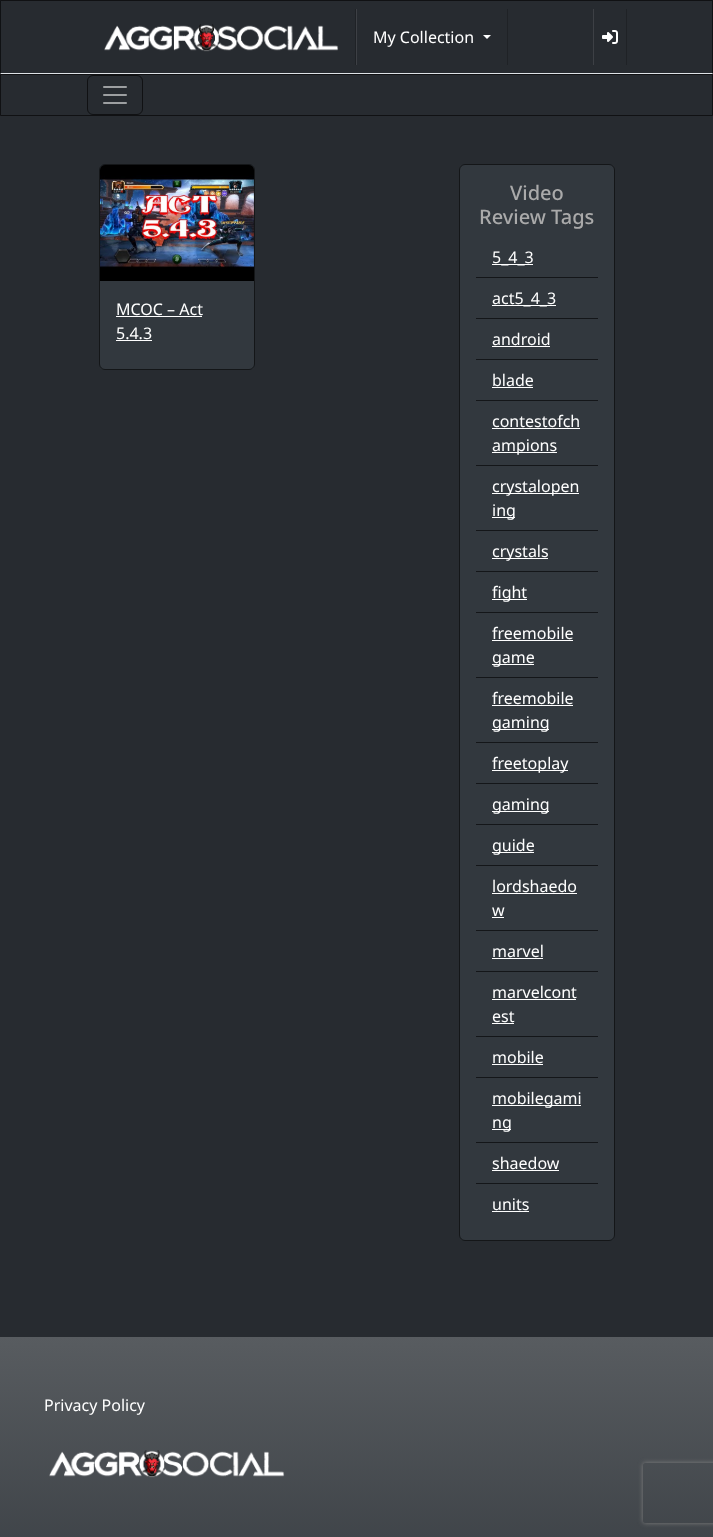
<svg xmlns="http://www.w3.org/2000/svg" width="713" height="1537">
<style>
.a{font:16px Noto Sans;fill:#fff}
.b{font:500 20px Noto Sans;fill:#aaa}
</style>
<defs>
<linearGradient id="g1" gradientUnits="userSpaceOnUse" x1="357" y1="1337" x2="357" y2="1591"><stop offset="0" stop-color="#585c60"/><stop offset="1" stop-color="#3a3f44"/></linearGradient>
<clipPath id="clip1"><path d="M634 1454h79v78h-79zm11 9h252c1 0 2 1 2 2v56c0 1-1 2-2 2h-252c-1 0-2-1-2-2v-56c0-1 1-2 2-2z" clip-rule="evenodd"/></clipPath>
</defs>
<rect width="100%" height="100%" fill="#272b30"/>
<path fill="#101113" d="M0 0h713l-1 1h-711z"/>
<path fill="#00000099" d="M713 0v74l-1-1v-72z"/>
<path fill="#dee2e6" d="M713 74h-713l1-1h711z"/>
<path fill="#00000099" d="M0 74v-74l1 1v72z"/>
<path fill="#1f2226" d="M355 9h1v56H355z"/>
<image href="1.png" x="104" y="24" width="235" height="28"/>
<path fill="#1f2226" d="M507 9h1v56H507z"/>
<path fill="#3d4045" d="M356 9h1v56H356z"/>
<path fill="#fff" d="M483 35h8l-4 4z"/>
<path fill="#1f2226" d="M626 9h1v56H626z"/>
<path fill="#3d4045" d="M593 9h1v56H593z"/>
<image href="2.png" x="602" y="30" width="16" height="14"/>
<path fill="none" stroke="#101113" d="M0.5 74.5h712v41H0.5z"/>
<rect fill="none" stroke="#101113" x="87.5" y="75.5" width="55" height="39" rx="5.5"/>
<image href="3.png" x="103" y="86" width="24" height="18"/>
<rect fill="#32383e" x="99" y="164" width="156" height="206" rx="6"/>
<rect fill="none" stroke="#00000099" x="99.5" y="164.5" width="155" height="205" rx="5.5"/>
<image href="4.png" x="100" y="165" width="154" height="116"/>
<path fill="#fff" d="M116 316h86v1H116z"/>
<path fill="#fff" d="M116 340h36v1H116z"/>
<rect fill="#32383e" x="459" y="164" width="156" height="1077" rx="6"/>
<rect fill="none" stroke="#00000099" x="459.5" y="164.5" width="155" height="1076" rx="5.5"/>
<path fill="#141619" d="M476 277h122v1H476z"/>
<path fill="#fff" d="M492 264h41v1H492z"/>
<path fill="#141619" d="M476 318h122v1H476z"/>
<path fill="#fff" d="M492 305h64v1H492z"/>
<path fill="#141619" d="M476 359h122v1H476z"/>
<path fill="#fff" d="M492 346h58v1H492z"/>
<path fill="#141619" d="M476 400h122v1H476z"/>
<path fill="#fff" d="M492 387h41v1H492z"/>
<path fill="#141619" d="M476 465h122v1H476z"/>
<path fill="#fff" d="M492 428h88v1H492z"/>
<path fill="#fff" d="M492 452h65v1H492z"/>
<path fill="#141619" d="M476 530h122v1H476z"/>
<path fill="#fff" d="M492 493h87v1H492z"/>
<path fill="#fff" d="M492 517h23v1H492z"/>
<path fill="#141619" d="M476 571h122v1H476z"/>
<path fill="#fff" d="M492 558h56v1H492z"/>
<path fill="#141619" d="M476 612h122v1H476z"/>
<path fill="#fff" d="M492 599h35v1H492z"/>
<path fill="#141619" d="M476 677h122v1H476z"/>
<path fill="#fff" d="M492 640h81v1H492z"/>
<path fill="#fff" d="M492 664h42v1H492z"/>
<path fill="#141619" d="M476 742h122v1H476z"/>
<path fill="#fff" d="M492 705h81v1H492z"/>
<path fill="#fff" d="M492 729h57v1H492z"/>
<path fill="#141619" d="M476 783h122v1H476z"/>
<path fill="#fff" d="M492 770h76v1H492z"/>
<path fill="#141619" d="M476 824h122v1H476z"/>
<path fill="#fff" d="M492 811h57v1H492z"/>
<path fill="#141619" d="M476 865h122v1H476z"/>
<path fill="#fff" d="M492 852h42v1H492z"/>
<path fill="#141619" d="M476 930h122v1H476z"/>
<path fill="#fff" d="M492 893h85v1H492z"/>
<path fill="#fff" d="M492 917h12v1H492z"/>
<path fill="#141619" d="M476 971h122v1H476z"/>
<path fill="#fff" d="M492 958h51v1H492z"/>
<path fill="#141619" d="M476 1036h122v1H476z"/>
<path fill="#fff" d="M492 999h84v1H492z"/>
<path fill="#fff" d="M492 1023h22v1H492z"/>
<path fill="#141619" d="M476 1077h122v1H476z"/>
<path fill="#fff" d="M492 1064h51v1H492z"/>
<path fill="#141619" d="M476 1142h122v1H476z"/>
<path fill="#fff" d="M492 1105h89v1H492z"/>
<path fill="#fff" d="M492 1129h19v1H492z"/>
<path fill="#141619" d="M476 1183h122v1H476z"/>
<path fill="#fff" d="M492 1170h67v1H492z"/>
<path fill="#fff" d="M492 1211h37v1H492z"/>
<path fill="url(#g1)" d="M0 1337h713v200H0z"/>
<image href="5.png" x="49" y="1450" width="236" height="28"/>
<g clip-path="url(#clip1)">
<rect fill="#808080" filter="blur(2.5px)" x="643" y="1463" width="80" height="60" rx="2"/>
</g>
<text class="a" x="373" y="43">My Collection</text>
<text class="a" x="116" y="315">MCOC – Act</text>
<text class="a" x="116" y="339">5.4.3</text>
<text class="b" x="510" y="200">Video</text>
<text class="b" x="479" y="224">Review Tags</text>
<text class="a" x="492" y="263">5_4_3</text>
<text class="a" x="492" y="304">act5_4_3</text>
<text class="a" x="492" y="345">android</text>
<text class="a" x="492" y="386">blade</text>
<text class="a" x="492" y="427">contestofch</text>
<text class="a" x="492" y="451">ampions</text>
<text class="a" x="492" y="492">crystalopen</text>
<text class="a" x="492" y="516">ing</text>
<text class="a" x="492" y="557">crystals</text>
<text class="a" x="492" y="598">fight</text>
<text class="a" x="492" y="639">freemobile</text>
<text class="a" x="492" y="663">game</text>
<text class="a" x="492" y="704">freemobile</text>
<text class="a" x="492" y="728">gaming</text>
<text class="a" x="492" y="769">freetoplay</text>
<text class="a" x="492" y="810">gaming</text>
<text class="a" x="492" y="851">guide</text>
<text class="a" x="492" y="892">lordshaedo</text>
<text class="a" x="492" y="916">w</text>
<text class="a" x="492" y="957">marvel</text>
<text class="a" x="492" y="998">marvelcont</text>
<text class="a" x="492" y="1022">est</text>
<text class="a" x="492" y="1063">mobile</text>
<text class="a" x="492" y="1104">mobilegami</text>
<text class="a" x="492" y="1128">ng</text>
<text class="a" x="492" y="1169">shaedow</text>
<text class="a" x="492" y="1210">units</text>
<text class="a" x="44" y="1411">Privacy Policy</text>
</svg>
